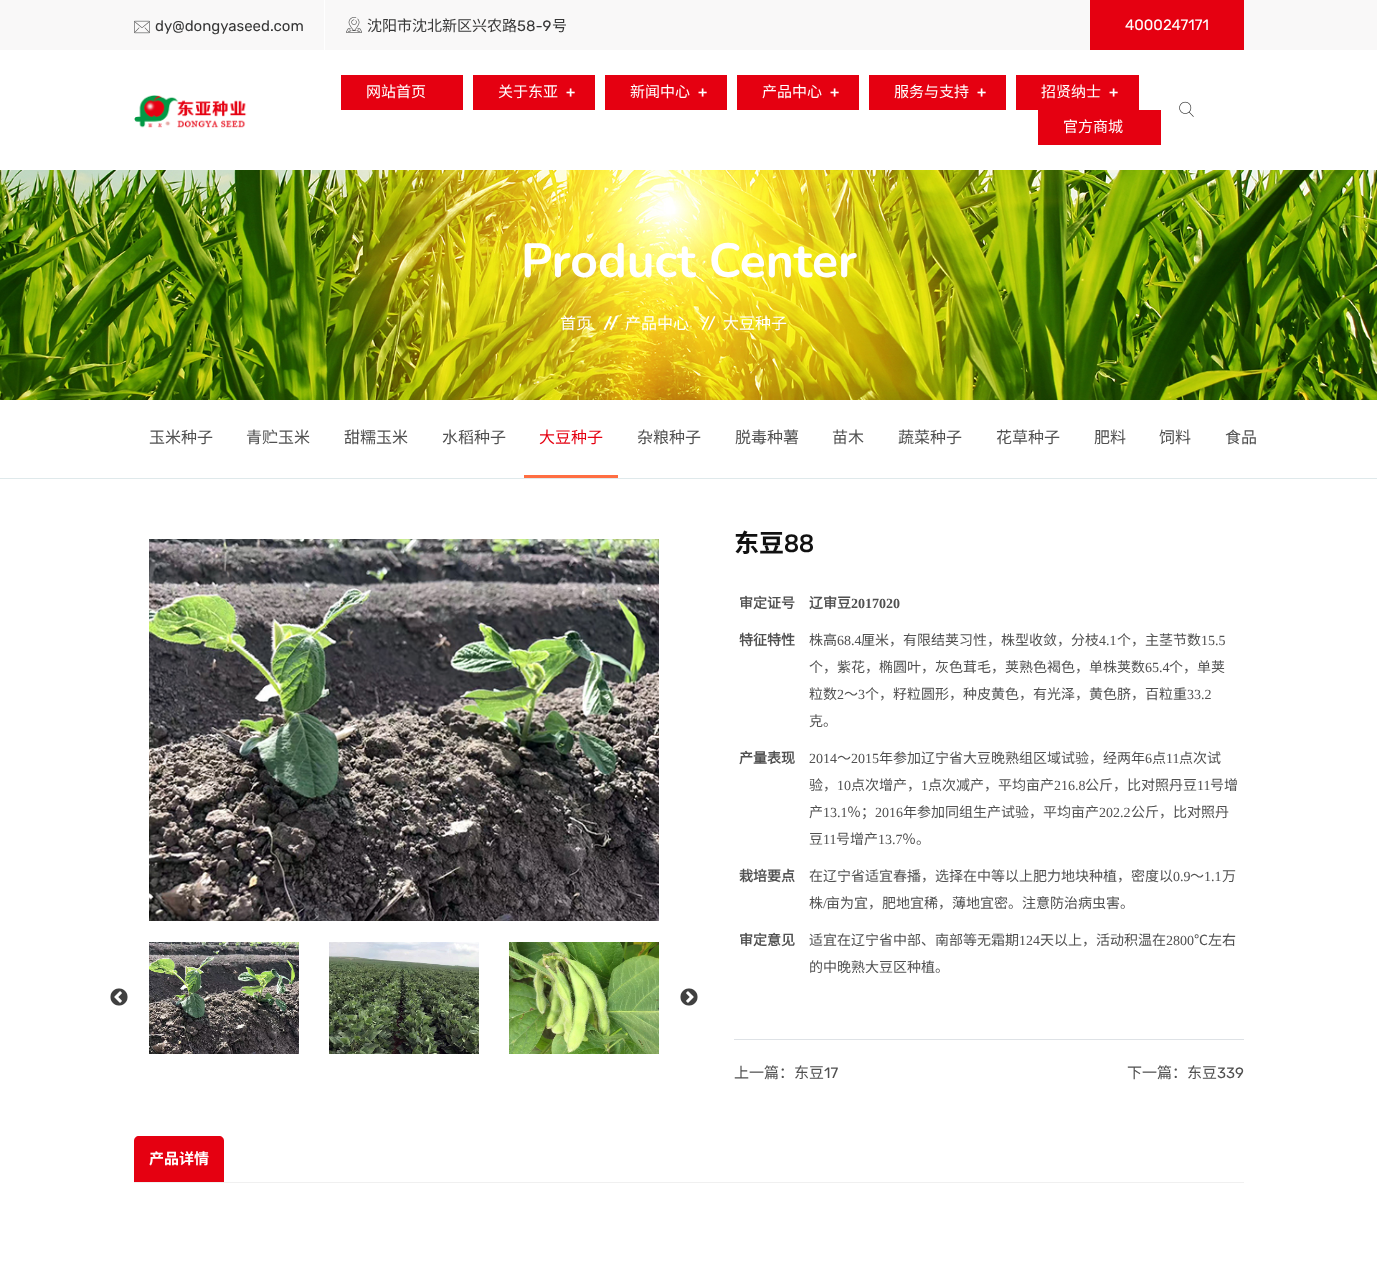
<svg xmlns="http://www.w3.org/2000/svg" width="1377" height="1261">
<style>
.a{font:15px Rubik;fill:#363636}
.b{font:15px Noto Sans CJK SC;fill:#363636}
.c{font:15px Rubik;fill:#fff}
.d{font:15px Noto Sans CJK SC;fill:#fff}
.e{font:500 15px Rubik;fill:#fff}
.f{font:bold 48px Nunito;fill:#fff}
.g{font:16px Noto Sans CJK SC;fill:#fff}
.h{font:16px Noto Sans CJK SC;fill:#505050}
.i{font:16px Noto Sans CJK SC;fill:#e50011}
.j{font:bold 25px Noto Sans CJK SC;fill:#111}
.k{font:bold 25px Nunito;fill:#111}
.l{font:bold 14px 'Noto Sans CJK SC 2';fill:#505050}
.m{font:bold 14px Liberation Serif;fill:#505050}
.n{font:14px Noto Sans CJK SC;fill:#505050}
.o{font:14px Liberation Serif;fill:#505050}
.p{font:15px Noto Sans CJK SC;fill:#505050}
.q{font:15px Rubik;fill:#505050}
.r{font:bold 15px Noto Sans CJK SC;fill:#fff}
</style>
<rect width="100%" height="100%" fill="#fff"/>
<path fill="#f9f8f8" d="M0 0h1377v50H0z"/>
<path fill="#fff" d="M324 0h1v50H324z"/>
<image href="1.png" x="134" y="20" width="16" height="14"/>
<image href="2.png" x="346" y="17" width="16" height="16"/>
<path fill="#e50011" d="M1090 0h154v50H1090z"/>
<image href="3.png" x="134" y="95" width="113" height="33"/>
<path fill="#e50011" d="M341 75h122v35H341z"/>
<path fill="#e50011" d="M473 75h122v35H473z"/>
<path fill="#e50011" d="M605 75h122v35H605z"/>
<path fill="#e50011" d="M737 75h122v35H737z"/>
<path fill="#e50011" d="M869 75h137v35H869z"/>
<path fill="#e50011" d="M1016 75h123v35H1016z"/>
<path fill="#e50011" d="M1038 110h123v35H1038z"/>
<image href="4.png" x="1179" y="101" width="15" height="16"/>
<image href="5.png" x="0" y="170" width="1377" height="230"/>
<path fill="#fff" d="M610 316l2 .5l-6.5 13.5l-2-.5z"/>
<path fill="#fff" d="M616 316l2 .5l-6.5 13.5l-2-.5z"/>
<path fill="#fff" d="M708 316l1.5 .5l-6.5 13.5l-1.5-.5z"/>
<path fill="#fff" d="M714 316l1.5 .5l-6.5 13.5l-1.5-.5z"/>
<path fill="#dfe9eb" d="M0 478h1377v1H0z"/>
<path fill="#ff6e42" d="M524 475h94v3H524z"/>
<image href="6.png" x="149" y="539" width="510" height="382"/>
<image href="7.png" x="110" y="988" width="18" height="18"/>
<image href="8.png" x="149" y="942" width="150" height="112"/>
<image href="9.png" x="329" y="942" width="150" height="112"/>
<image href="10.png" x="509" y="942" width="150" height="112"/>
<image href="11.png" x="680" y="988" width="18" height="18"/>
<path fill="#dee2e6" d="M734 1039h510v1H734z"/>
<path fill="#f0f0f0" d="M134 1182h1110v1H134z"/>
<path fill="#e50011" d="M139 1136h80c3 0 5 2 5 5v41h-90v-41c0-3 2-5 5-5z"/>
<text class="a" x="155" y="31">dy@dongyaseed.com</text>
<text class="b" x="367" y="31">沈阳市沈北新区兴农路</text>
<text class="a" x="517" y="31">58-9</text>
<text class="b" x="552" y="31">号</text>
<text class="c" x="1125" y="30">4000247171</text>
<text class="d" x="366" y="97">网站首页</text>
<text class="d" x="498" y="97">关于东亚</text>
<text class="e" x="566" y="97">+</text>
<text class="d" x="630" y="97">新闻中心</text>
<text class="e" x="698" y="97">+</text>
<text class="d" x="762" y="97">产品中心</text>
<text class="e" x="830" y="97">+</text>
<text class="d" x="894" y="97">服务与支持</text>
<text class="e" x="977" y="97">+</text>
<text class="d" x="1041" y="97">招贤纳士</text>
<text class="e" x="1109" y="97">+</text>
<text class="d" x="1063" y="132">官方商城</text>
<text class="f" x="521" y="277">Product Center</text>
<text class="g" x="560" y="329">首页</text>
<text class="g" x="625" y="329">产品中心</text>
<text class="g" x="723" y="329">大豆种子</text>
<text class="h" x="149" y="443">玉米种子</text>
<text class="h" x="246" y="443">青贮玉米</text>
<text class="h" x="344" y="443">甜糯玉米</text>
<text class="h" x="442" y="443">水稻种子</text>
<text class="i" x="539" y="443">大豆种子</text>
<text class="h" x="637" y="443">杂粮种子</text>
<text class="h" x="735" y="443">脱毒种薯</text>
<text class="h" x="832" y="443">苗木</text>
<text class="h" x="898" y="443">蔬菜种子</text>
<text class="h" x="996" y="443">花草种子</text>
<text class="h" x="1094" y="443">肥料</text>
<text class="h" x="1159" y="443">饲料</text>
<text class="h" x="1225" y="443">食品</text>
<text class="j" x="734" y="552">东豆</text>
<text class="k" x="784" y="552">88</text>
<text class="l" x="739" y="608">审定证号</text>
<text class="l" x="809" y="608">辽审豆</text>
<text class="m" x="851" y="608">2017020</text>
<text class="l" x="739" y="645">特征特性</text>
<text class="n" x="809" y="645">株高</text>
<text class="o" x="837" y="645">68.4</text>
<text class="n" x="861" y="645">厘米，有限结荚习性，株型收敛，分枝</text>
<text class="o" x="1099" y="645">4.1</text>
<text class="n" x="1117" y="645">个，主茎节数</text>
<text class="o" x="1201" y="645">15.5</text>
<text class="n" x="809" y="672">个，紫花，椭圆叶，灰色茸毛，荚熟色褐色，单株荚数</text>
<text class="o" x="1145" y="672">65.4</text>
<text class="n" x="1169" y="672">个，单荚</text>
<text class="n" x="809" y="699">粒数</text>
<text class="o" x="837" y="699">2</text>
<text class="n" x="844" y="699">～</text>
<text class="o" x="858" y="699">3</text>
<text class="n" x="865" y="699">个，籽粒圆形，种皮黄色，有光泽，黄色脐，百粒重</text>
<text class="o" x="1187" y="699">33.2</text>
<text class="n" x="809" y="726">克。</text>
<text class="l" x="739" y="763">产量表现</text>
<text class="o" x="809" y="763">2014</text>
<text class="n" x="837" y="763">～</text>
<text class="o" x="851" y="763">2015</text>
<text class="n" x="879" y="763">年参加辽宁省大豆晚熟组区域试验，经两年</text>
<text class="o" x="1145" y="763">6</text>
<text class="n" x="1152" y="763">点</text>
<text class="o" x="1166" y="763">11</text>
<text class="n" x="1179" y="763">点次试</text>
<text class="n" x="809" y="790">验，</text>
<text class="o" x="837" y="790">10</text>
<text class="n" x="851" y="790">点次增产，</text>
<text class="o" x="921" y="790">1</text>
<text class="n" x="928" y="790">点次减产，平均亩产</text>
<text class="o" x="1054" y="790">216.8</text>
<text class="n" x="1085" y="790">公斤，比对照丹豆</text>
<text class="o" x="1197" y="790">11</text>
<text class="n" x="1210" y="790">号增</text>
<text class="n" x="809" y="817">产</text>
<text class="o" x="823" y="817">13.1</text>
<text class="n" x="847" y="817">％；</text>
<text class="o" x="875" y="817">2016</text>
<text class="n" x="903" y="817">年参加同组生产试验，平均亩产</text>
<text class="o" x="1099" y="817">202.2</text>
<text class="n" x="1131" y="817">公斤，比对照丹</text>
<text class="n" x="809" y="844">豆</text>
<text class="o" x="823" y="844">11</text>
<text class="n" x="836" y="844">号增产</text>
<text class="o" x="878" y="844">13.7</text>
<text class="n" x="902" y="844">％。</text>
<text class="l" x="739" y="881">栽培要点</text>
<text class="n" x="809" y="881">在辽宁省适宜春播，选择在中等以上肥力地块种植，密度以</text>
<text class="o" x="1173" y="881">0.9</text>
<text class="n" x="1190" y="881">～</text>
<text class="o" x="1204" y="881">1.1</text>
<text class="n" x="1222" y="881">万</text>
<text class="n" x="809" y="908">株</text>
<text class="o" x="823" y="908">/</text>
<text class="n" x="826" y="908">亩为宜，肥地宜稀，薄地宜密。注意防治病虫害。</text>
<text class="l" x="739" y="945">审定意见</text>
<text class="n" x="809" y="945">适宜在辽宁省中部、南部等无霜期</text>
<text class="o" x="1019" y="945">124</text>
<text class="n" x="1040" y="945">天以上，活动积温在</text>
<text class="o" x="1166" y="945">2800</text>
<text class="n" x="1194" y="945">℃左右</text>
<text class="n" x="809" y="972">的中晚熟大豆区种植。</text>
<text class="p" x="734" y="1078">上一篇：东豆</text>
<text class="q" x="824" y="1078">17</text>
<text class="p" x="1127" y="1078">下一篇：东豆</text>
<text class="q" x="1217" y="1078">339</text>
<text class="r" x="149" y="1164">产品详情</text>
</svg>
